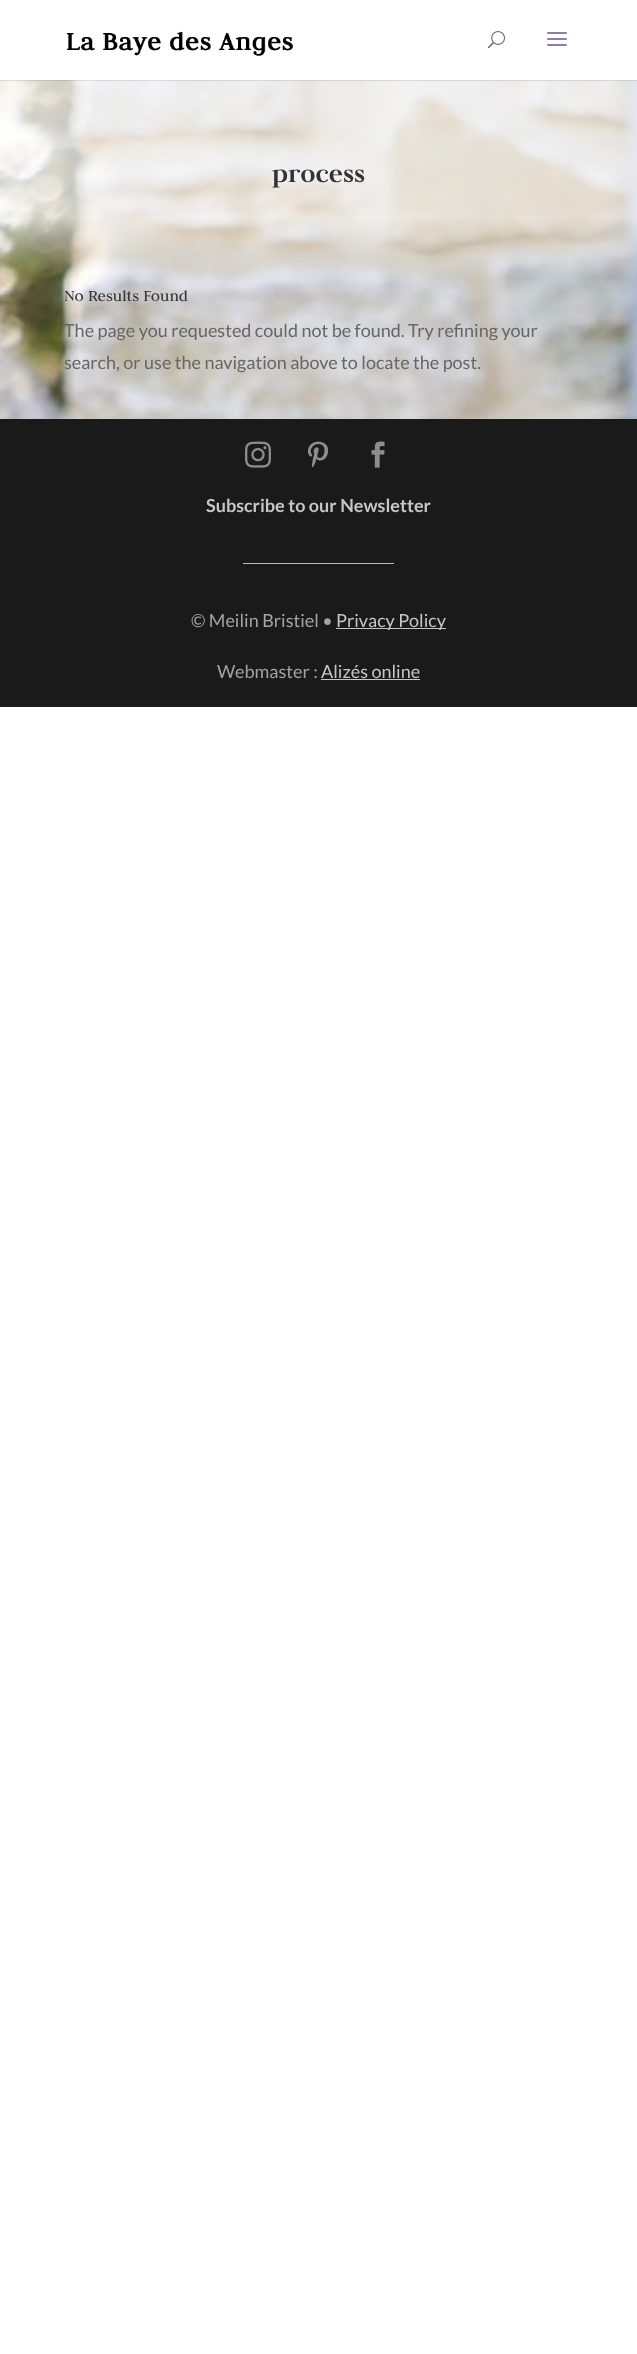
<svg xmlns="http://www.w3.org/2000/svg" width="637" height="2354">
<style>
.a{font:bold 28px Judson;fill:#333}
.b{font:17px Judson;fill:#333}
.c{font:18px Lato;fill:#666}
.d{font:bold 18px Lato;fill:#c6c6c6}
.e{font:18px Lato;fill:#a3a3a3}
.f{font:18px Lato;fill:#c6c6c6}
</style>
<rect width="100%" height="100%" fill="#fff"/>
<image href="4.png" x="0" y="80" width="637" height="339"/>
<path fill="#0000001a" d="M0 80h637v1H0z"/>
<image href="1.png" x="67" y="31" width="226" height="25"/>
<image href="2.png" x="488" y="31" width="17" height="18"/>
<image href="3.png" x="547" y="32" width="20" height="14"/>
<path fill="#1a1a1a" d="M0 419h637v288H0z"/>
<image href="5.png" x="245" y="441" width="26" height="27"/>
<image href="6.png" x="307" y="441" width="22" height="27"/>
<image href="7.png" x="371" y="441" width="14" height="27"/>
<path fill="#bababa" d="M243 563h151v1H243z"/>
<path fill="#c6c6c6" d="M336 628h110v1H336z"/>
<path fill="#c6c6c6" d="M321 679h99v1H321z"/>
<text class="a" x="272" y="182">process</text>
<text class="b" x="64" y="301">No Results Found</text>
<text class="c" x="64" y="337">The page you requested could not be found. Try refining your</text>
<text class="c" x="64" y="369">search, or use the navigation above to locate the post.</text>
<text class="d" x="206" y="512">Subscribe to our Newsletter</text>
<text class="e" x="191" y="627">© Meilin Bristiel •</text>
<text class="f" x="336" y="627">Privacy Policy</text>
<text class="e" x="217" y="678">Webmaster :</text>
<text class="f" x="321" y="678">Alizés online</text>
</svg>
